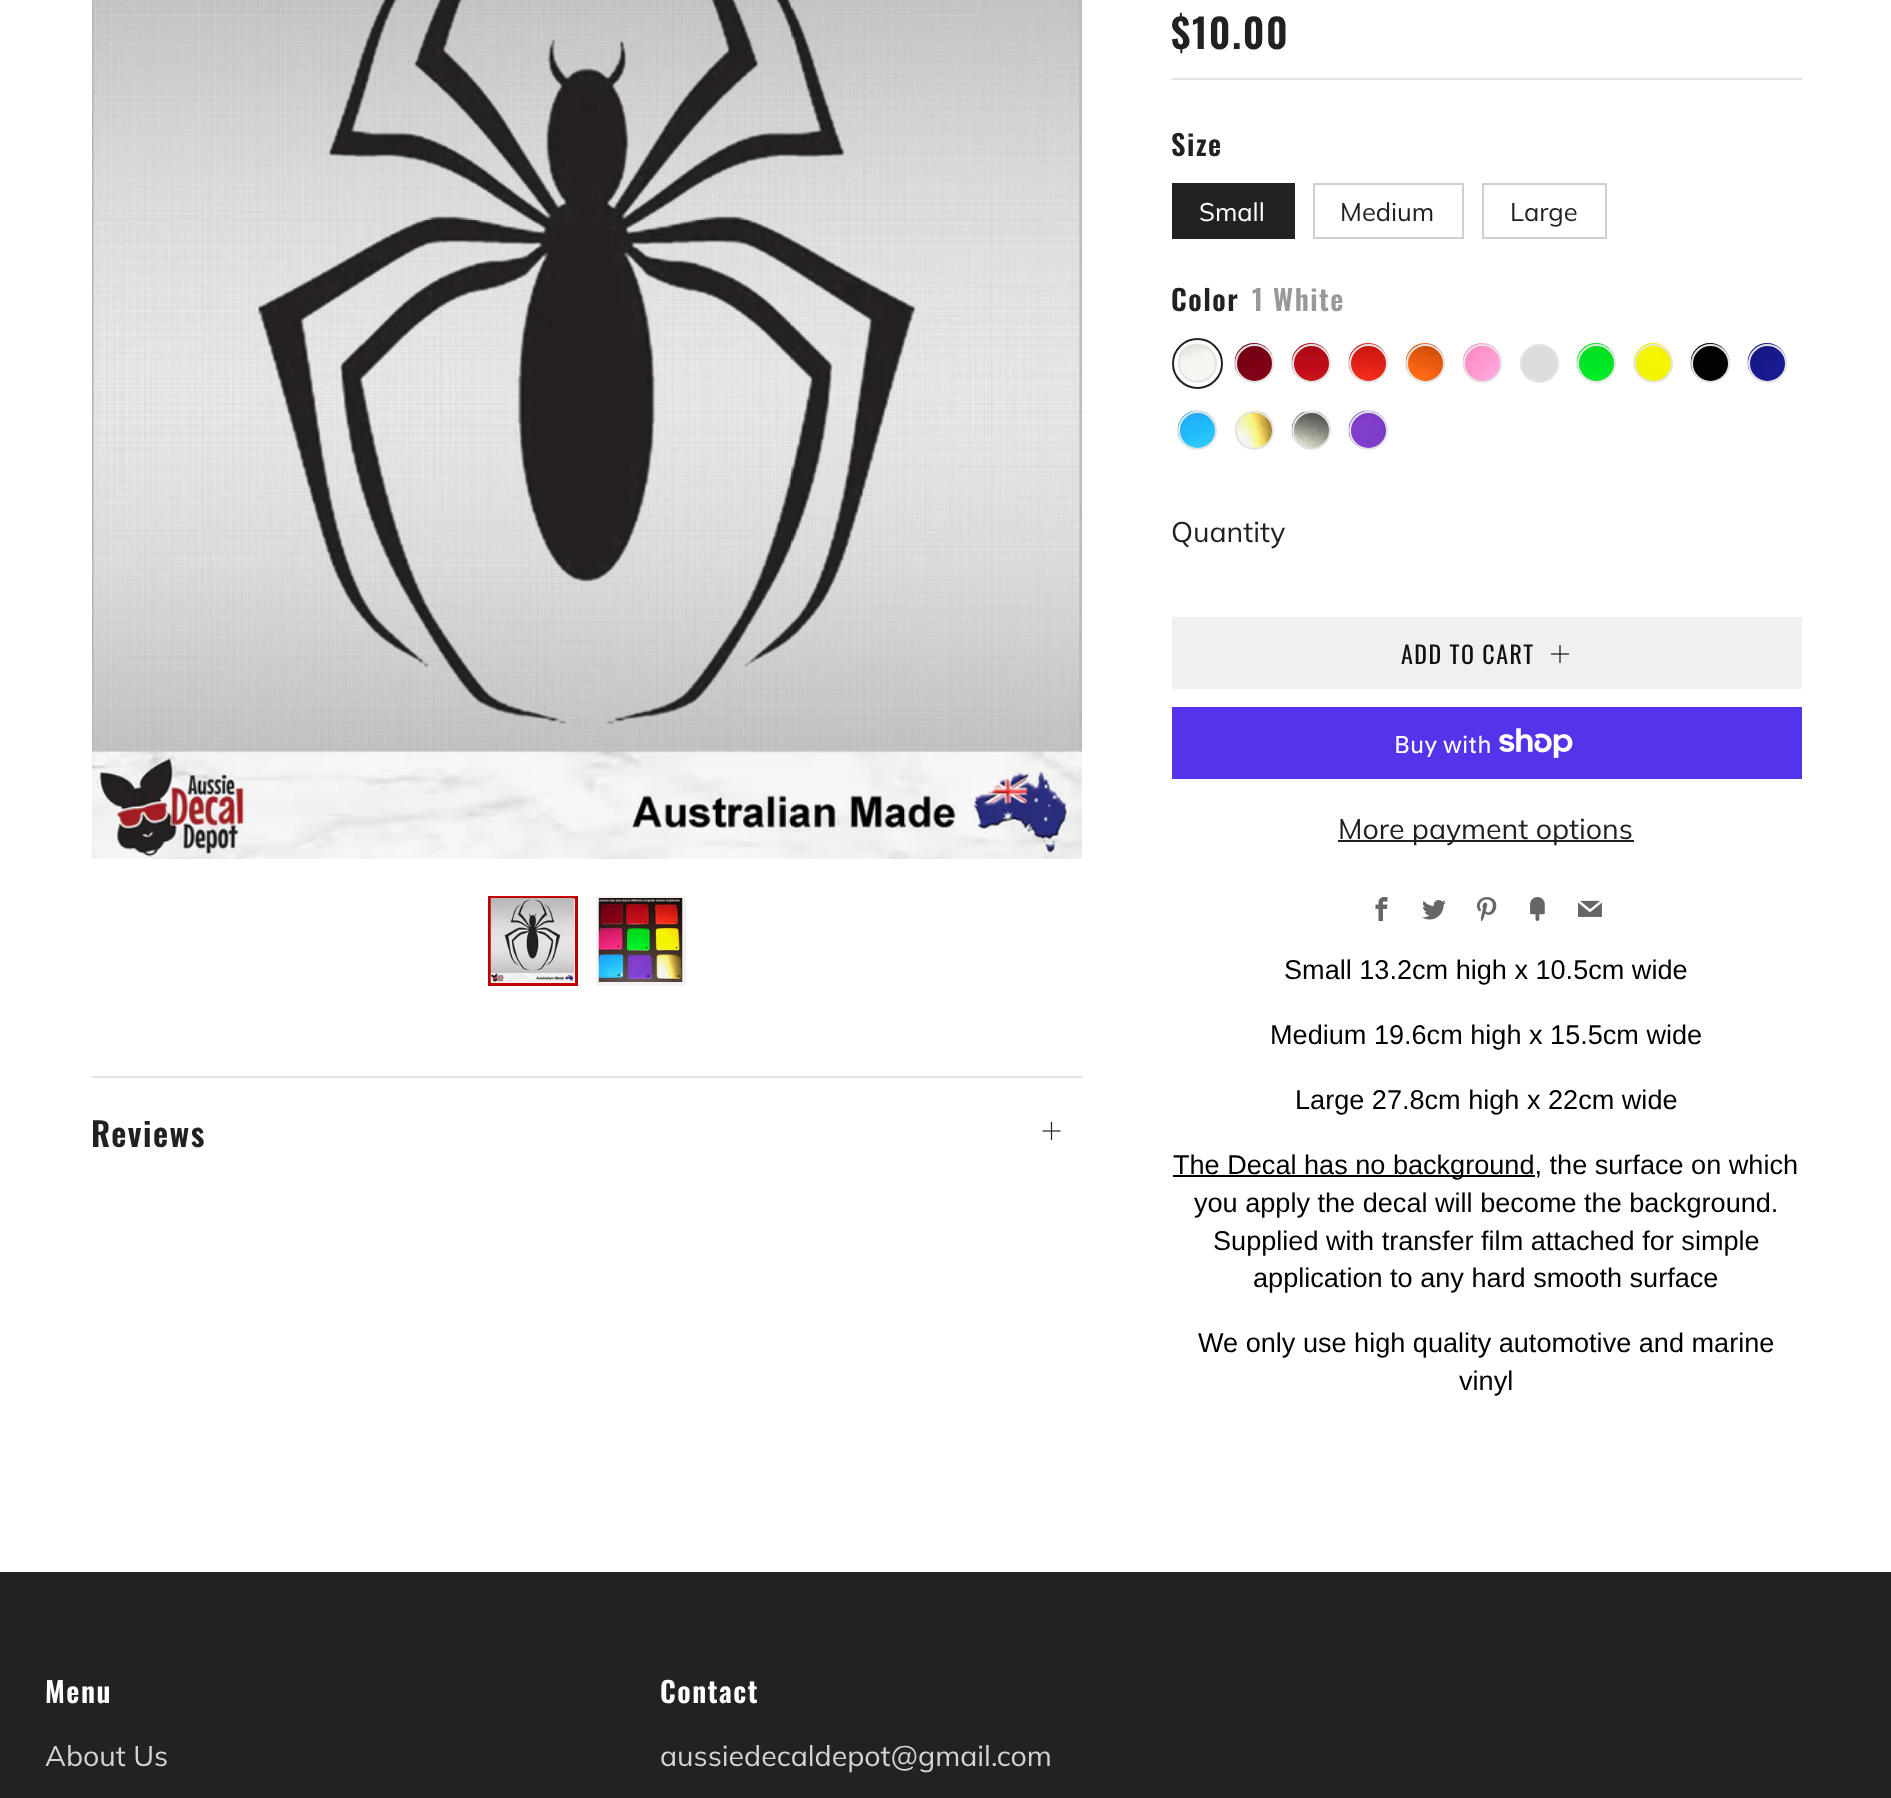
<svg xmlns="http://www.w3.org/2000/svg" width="1891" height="1798">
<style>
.a{font:600 33px Oswald;letter-spacing:1.5px;fill:#212121}
.b{font:600 40px Oswald;letter-spacing:1.5px;fill:#212121}
.c{font:600 28.5px Oswald;letter-spacing:1.5px;fill:#212121}
.d{font:25.5px Muli;fill:#fff}
.e{font:25.5px Muli;fill:#212121}
.f{font:600 28.5px Oswald;letter-spacing:1.5px;fill:#999}
.g{font:28.5px Muli;fill:#212121}
.h{font:24px Oswald;letter-spacing:1.5px;fill:#111}
.i{font:24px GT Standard;fill:#fff}
.j{font:27.1px Liberation Sans;fill:#000}
.k{font:600 28.5px Oswald;letter-spacing:1.5px;fill:#fff}
.l{font:28.5px Muli;fill:#d3d3d3}
</style>
<rect width="100%" height="100%" fill="#fff"/>
<image href="1.png" x="92" y="0" width="990" height="859"/>
<path fill="#f3f3f3" stroke="#c00000" stroke-width="3" d="M489.5 897.5h87v87H489.5z"/>
<image href="2.png" x="490" y="898" width="85" height="84"/>
<path fill="#f3f3f3" d="M596 896h90v90H596z"/>
<image href="3.png" x="598" y="898" width="85" height="84"/>
<path fill="#e4e4e4" d="M92 1076h990v2H92z"/>
<image href="4.png" x="1042" y="1122" width="19" height="18"/>
<path fill="#e4e4e4" d="M1172 78h630v2H1172z"/>
<path fill="#222" d="M1172 183h123v56H1172z"/>
<path fill="none" stroke="#cfcfcf" stroke-width="2" d="M1314 184h149v54H1314z"/>
<path fill="none" stroke="#cfcfcf" stroke-width="2" d="M1483 184h123v54H1483z"/>
<circle fill="none" stroke="#222" stroke-width="2" cx="1197.5" cy="363.5" r="24.5"/>
<image href="5.png" x="1178" y="343" width="39" height="39"/>
<circle fill="none" stroke="#e4e4e4" stroke-width="2" cx="1197.5" cy="363.5" r="18.5"/>
<image href="6.png" x="1234" y="343" width="40" height="39"/>
<circle fill="none" stroke="#e4e4e4" stroke-width="2" cx="1254.5" cy="363.5" r="18.5"/>
<image href="7.png" x="1291" y="343" width="40" height="39"/>
<circle fill="none" stroke="#e4e4e4" stroke-width="2" cx="1311.5" cy="363.5" r="18.5"/>
<image href="8.png" x="1348" y="343" width="40" height="39"/>
<circle fill="none" stroke="#e4e4e4" stroke-width="2" cx="1368.5" cy="363.5" r="18.5"/>
<image href="9.png" x="1405" y="343" width="40" height="39"/>
<circle fill="none" stroke="#e4e4e4" stroke-width="2" cx="1425.5" cy="363.5" r="18.5"/>
<image href="10.png" x="1462" y="343" width="40" height="39"/>
<circle fill="none" stroke="#e4e4e4" stroke-width="2" cx="1482.5" cy="363.5" r="18.5"/>
<circle fill="#ddd" stroke="#e4e4e4" stroke-width="2" cx="1539.5" cy="363.5" r="18.5"/>
<image href="11.png" x="1576" y="343" width="40" height="39"/>
<circle fill="none" stroke="#e4e4e4" stroke-width="2" cx="1596.5" cy="363.5" r="18.5"/>
<image href="12.png" x="1633" y="343" width="40" height="39"/>
<circle fill="none" stroke="#e4e4e4" stroke-width="2" cx="1653.5" cy="363.5" r="18.5"/>
<image href="13.png" x="1690" y="343" width="40" height="39"/>
<circle fill="none" stroke="#e4e4e4" stroke-width="2" cx="1710.5" cy="363.5" r="18.5"/>
<image href="14.png" x="1747" y="343" width="40" height="39"/>
<circle fill="none" stroke="#e4e4e4" stroke-width="2" cx="1767.5" cy="363.5" r="18.5"/>
<image href="15.png" x="1177" y="410" width="40" height="40"/>
<circle fill="none" stroke="#e4e4e4" stroke-width="2" cx="1197.5" cy="430.5" r="18.5"/>
<image href="16.png" x="1234" y="410" width="40" height="40"/>
<circle fill="none" stroke="#e4e4e4" stroke-width="2" cx="1254.5" cy="430.5" r="18.5"/>
<image href="17.png" x="1291" y="410" width="40" height="40"/>
<circle fill="none" stroke="#e4e4e4" stroke-width="2" cx="1311.5" cy="430.5" r="18.5"/>
<image href="18.png" x="1348" y="410" width="40" height="40"/>
<circle fill="none" stroke="#e4e4e4" stroke-width="2" cx="1368.5" cy="430.5" r="18.5"/>
<path fill="#f0f0f0" d="M1172 617h630v72H1172z"/>
<image href="19.png" x="1551" y="645" width="18" height="18"/>
<path fill="#5433eb" d="M1172 707h630v72H1172z"/>
<image href="20.png" x="1499" y="728" width="74" height="30"/>
<path fill="#212121" d="M1338 840h296v2H1338z"/>
<image href="21.png" x="1375" y="897" width="13" height="24"/>
<image href="22.png" x="1422" y="900" width="24" height="20"/>
<image href="23.png" x="1477" y="897" width="20" height="24"/>
<image href="24.png" x="1530" y="897" width="15" height="24"/>
<image href="25.png" x="1578" y="900" width="24" height="17"/>
<path fill="#000" d="M1173 1175h362v2H1173z"/>
<path fill="#222" d="M0 1572h1891v226H0z"/>
<text class="a" x="91" y="1147">Reviews</text>
<text class="b" x="1171" y="49">$10.00</text>
<text class="c" x="1171" y="156">Size</text>
<text class="d" x="1199" y="221">Small</text>
<text class="e" x="1340" y="221">Medium</text>
<text class="e" x="1510" y="221">Large</text>
<text class="c" x="1171" y="311">Color</text>
<text class="f" x="1252" y="311">1 White</text>
<text class="g" x="1171" y="542">Quantity</text>
<text class="h" x="1401" y="664">ADD TO CART</text>
<text class="i" x="1394" y="753">Buy with</text>
<text class="g" x="1338" y="839">More payment options</text>
<text class="j" x="1284" y="979">Small 13.2cm high x 10.5cm wide</text>
<text class="j" x="1270" y="1044">Medium 19.6cm high x 15.5cm wide</text>
<text class="j" x="1295" y="1109">Large 27.8cm high x 22cm wide</text>
<text class="j" x="1173" y="1174">The Decal has no background, the surface on which</text>
<text class="j" x="1194" y="1212">you apply the decal will become the background.</text>
<text class="j" x="1213" y="1250">Supplied with transfer film attached for simple</text>
<text class="j" x="1253" y="1287">application to any hard smooth surface</text>
<text class="j" x="1198" y="1352">We only use high quality automotive and marine</text>
<text class="j" x="1459" y="1390">vinyl</text>
<text class="k" x="45" y="1703">Menu</text>
<text class="l" x="45" y="1766">About Us</text>
<text class="k" x="660" y="1703">Contact</text>
<text class="l" x="660" y="1766">aussiedecaldepot@gmail.com</text>
</svg>
